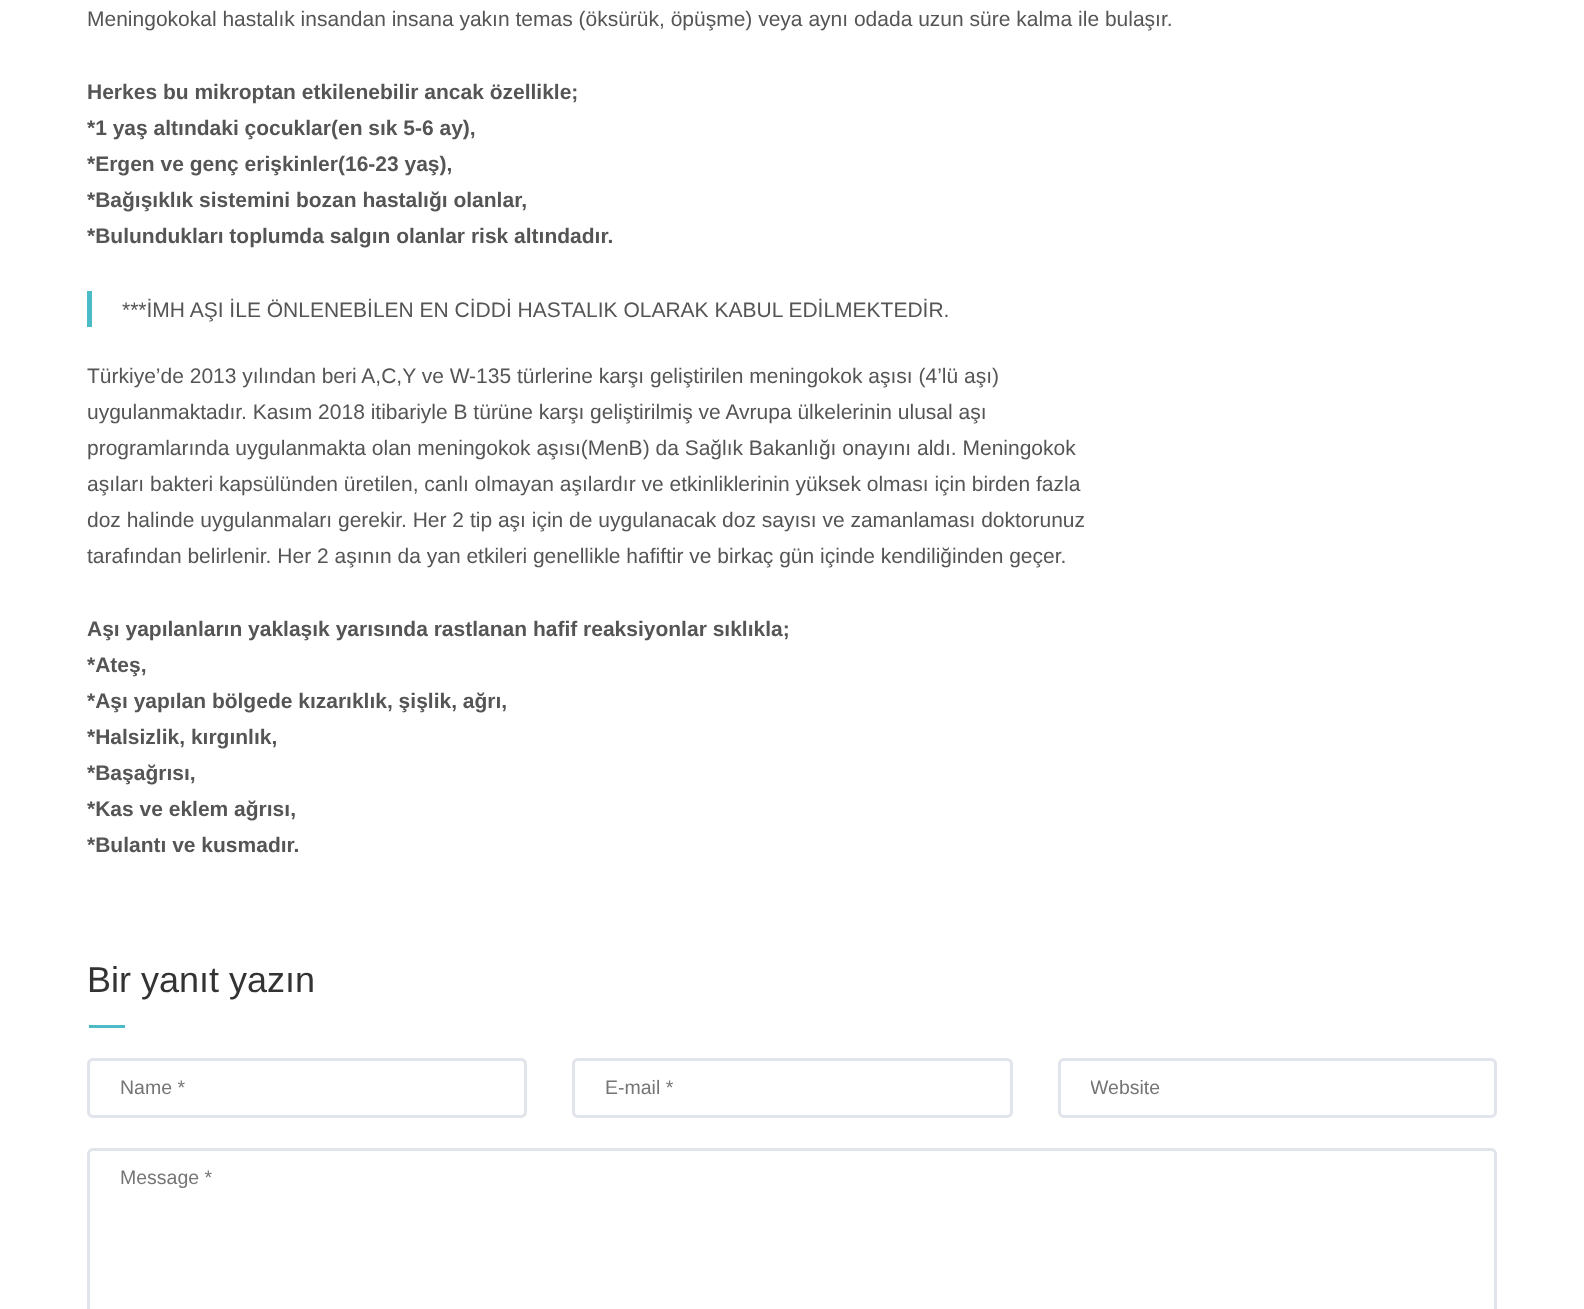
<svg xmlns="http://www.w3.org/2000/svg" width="1584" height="1309">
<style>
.a{font:21px Arimo;fill:#555}
.b{font:bold 21px Arimo;fill:#555}
.c{font:36px Arimo;fill:#333}
.d{font:19.5px Arimo;fill:#757575}
</style>
<defs>
<clipPath id="clip1"><path d="M1091 1077h373v23H1091z"/></clipPath>
</defs>
<rect width="100%" height="100%" fill="#fff"/>
<path fill="#4abbc7" d="M87 291h5v36H87z"/>
<path fill="#4abbc7" d="M89 1025h36v3H89z"/>
<rect fill="none" stroke="#e1e4eb" stroke-width="3" x="88.5" y="1059.5" width="437" height="57" rx="4.5"/>
<rect fill="none" stroke="#e1e4eb" stroke-width="3" x="573.5" y="1059.5" width="438" height="57" rx="4.5"/>
<rect fill="none" stroke="#e1e4eb" stroke-width="3" x="1059.5" y="1059.5" width="436" height="57" rx="4.5"/>
<rect fill="none" stroke="#e1e4eb" stroke-width="3" x="88.5" y="1149.5" width="1407" height="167" rx="4.5"/>
<text class="a" x="87" y="26">Meningokokal hastalık insandan insana yakın temas (öksürük, öpüşme) veya aynı odada uzun süre kalma ile bulaşır.</text>
<text class="b" x="87" y="99">Herkes bu mikroptan etkilenebilir ancak özellikle;</text>
<text class="b" x="87" y="135">*1 yaş altındaki çocuklar(en sık 5-6 ay),</text>
<text class="b" x="87" y="171">*Ergen ve genç erişkinler(16-23 yaş),</text>
<text class="b" x="87" y="207">*Bağışıklık sistemini bozan hastalığı olanlar,</text>
<text class="b" x="87" y="243">*Bulundukları toplumda salgın olanlar risk altındadır.</text>
<text class="a" x="122" y="317">***İMH AŞI İLE ÖNLENEBİLEN EN CİDDİ HASTALIK OLARAK KABUL EDİLMEKTEDİR.</text>
<text class="a" x="87" y="383">Türkiye’de 2013 yılından beri A,C,Y ve W-135 türlerine karşı geliştirilen meningokok aşısı (4’lü aşı)</text>
<text class="a" x="87" y="419">uygulanmaktadır. Kasım 2018 itibariyle B türüne karşı geliştirilmiş ve Avrupa ülkelerinin ulusal aşı</text>
<text class="a" x="87" y="455">programlarında uygulanmakta olan meningokok aşısı(MenB) da Sağlık Bakanlığı onayını aldı. Meningokok</text>
<text class="a" x="87" y="491">aşıları bakteri kapsülünden üretilen, canlı olmayan aşılardır ve etkinliklerinin yüksek olması için birden fazla</text>
<text class="a" x="87" y="527">doz halinde uygulanmaları gerekir. Her 2 tip aşı için de uygulanacak doz sayısı ve zamanlaması doktorunuz</text>
<text class="a" x="87" y="563">tarafından belirlenir. Her 2 aşının da yan etkileri genellikle hafiftir ve birkaç gün içinde kendiliğinden geçer.</text>
<text class="b" x="87" y="636">Aşı yapılanların yaklaşık yarısında rastlanan hafif reaksiyonlar sıklıkla;</text>
<text class="b" x="87" y="672">*Ateş,</text>
<text class="b" x="87" y="708">*Aşı yapılan bölgede kızarıklık, şişlik, ağrı,</text>
<text class="b" x="87" y="744">*Halsizlik, kırgınlık,</text>
<text class="b" x="87" y="780">*Başağrısı,</text>
<text class="b" x="87" y="816">*Kas ve eklem ağrısı,</text>
<text class="b" x="87" y="852">*Bulantı ve kusmadır.</text>
<text class="c" x="87" y="992">Bir yanıt yazın</text>
<text class="d" x="120" y="1094">Name *</text>
<text class="d" x="605" y="1094">E-mail *</text>
<g clip-path="url(#clip1)">
<text class="d" x="1090" y="1094">Website</text>
</g>
<text class="d" x="120" y="1184">Message *</text>
</svg>
